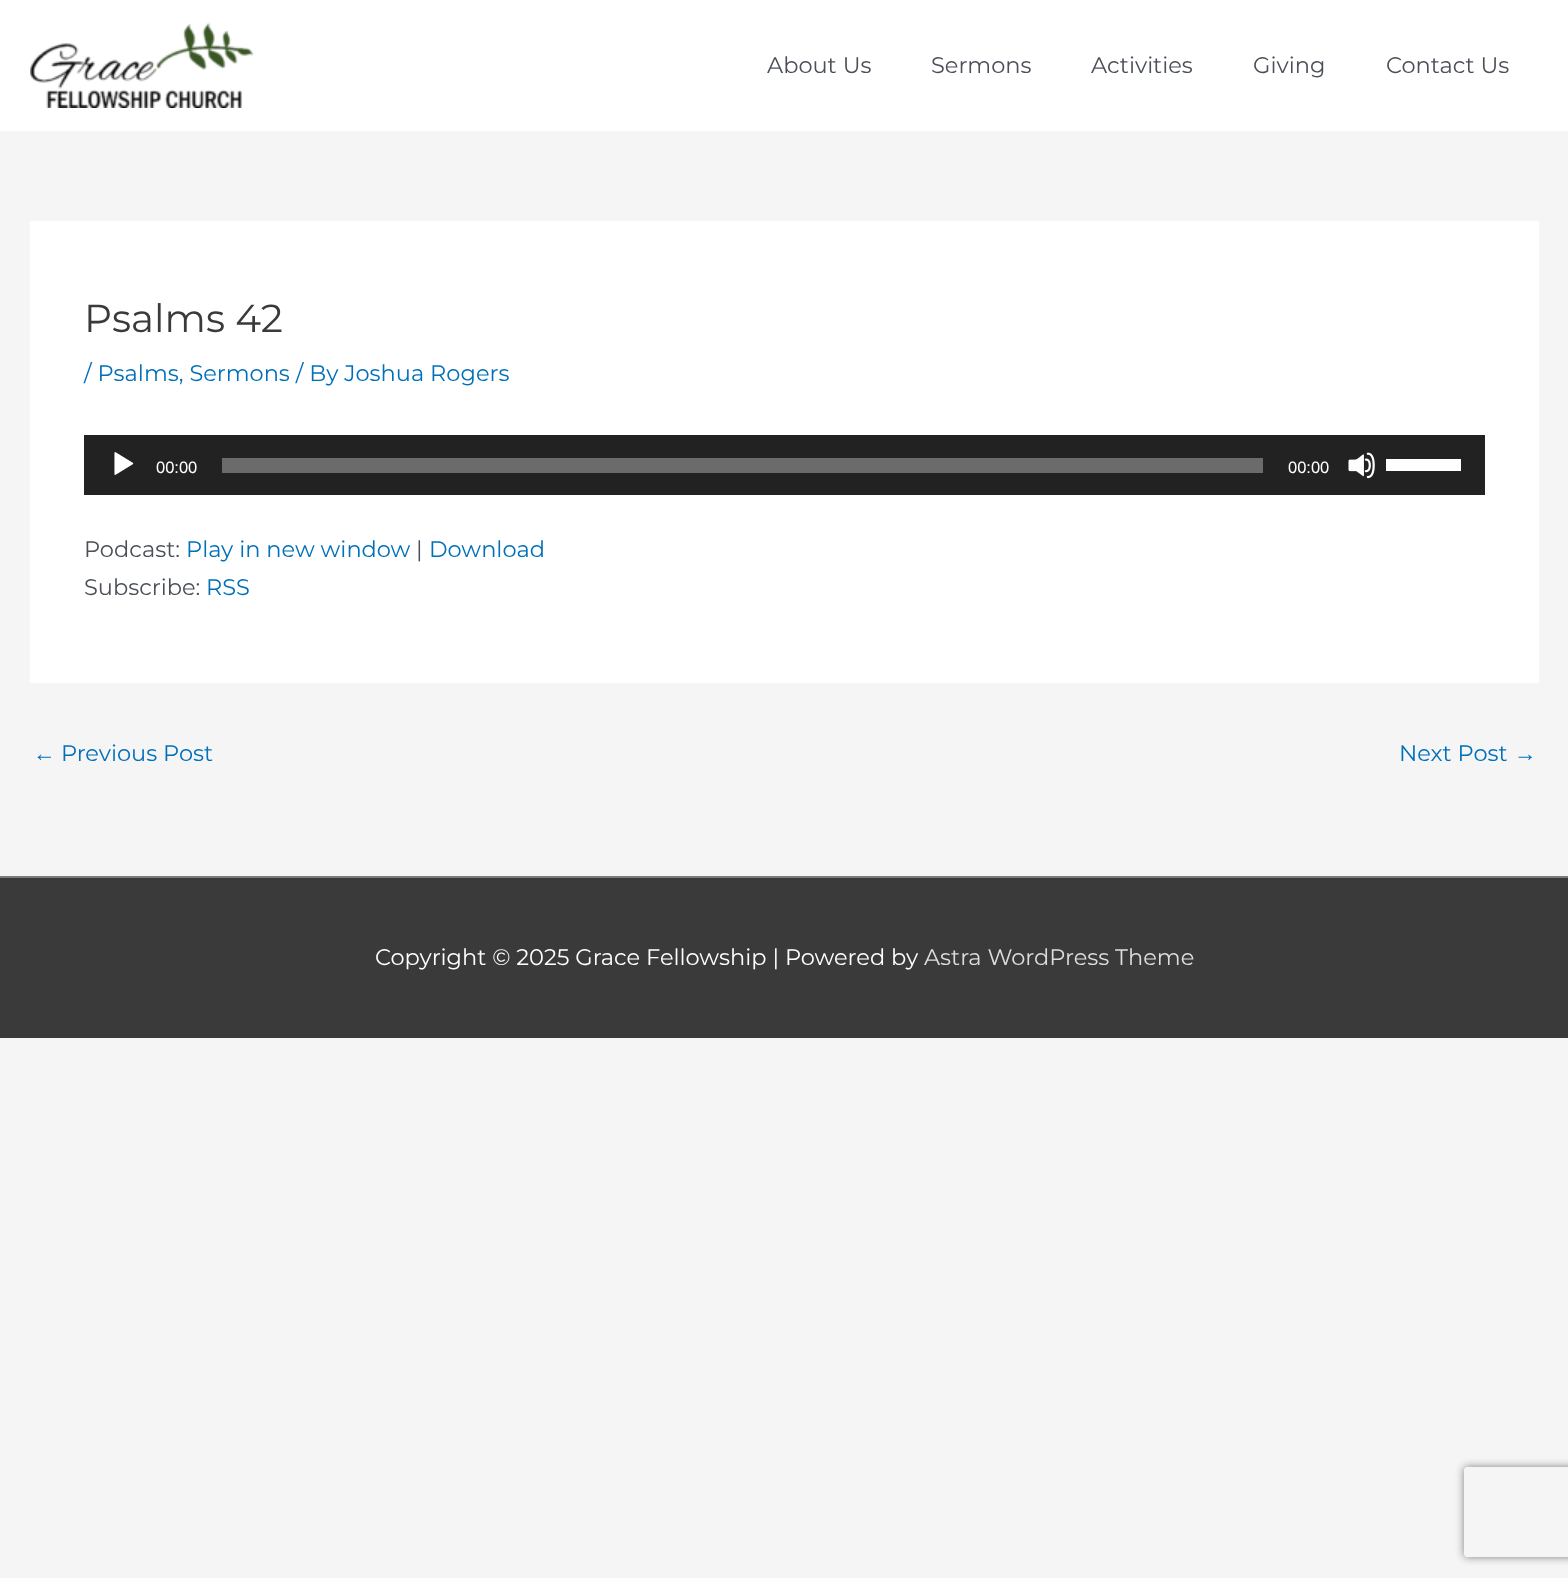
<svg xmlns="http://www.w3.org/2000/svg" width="1568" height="1578">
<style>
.a{font:100 22.5px Montserrat;fill:#4b4f58}
.b{font:100 39px Montserrat;fill:#3a3a3a}
.c{font:100 22.5px Montserrat;fill:#0170b9}
.d{font:16.5px Liberation Sans;fill:#fff}
.e{font:22.5px Liberation Sans;fill:#0170b9}
.f{font:100 22.5px Montserrat;fill:#fff}
.g{font:100 22.5px Montserrat;fill:#ddd}
</style>
<defs>
<clipPath id="clip1"><path d="M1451 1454h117v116h-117zm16 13h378c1.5 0 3 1.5 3 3v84c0 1.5-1.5 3-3 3h-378c-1.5 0-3-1.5-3-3v-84c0-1.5 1.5-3 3-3z" clip-rule="evenodd"/></clipPath>
</defs>
<rect width="100%" height="100%" fill="#f5f5f5"/>
<path fill="#fff" d="M0 0h1568v131H0z"/>
<image href="1.png" x="30" y="22" width="224" height="86"/>
<path fill="#fff" d="M30 221h1509v462H30z"/>
<path fill="#222" d="M84 435h1401v60H84z"/>
<image href="2.png" x="114" y="452" width="20" height="23"/>
<path fill="#6b6b6b" d="M222 458h1041v15H222z"/>
<image href="3.png" x="1348" y="452" width="27" height="27"/>
<path fill="#fff" d="M1386 459h75v12H1386z"/>
<path fill="#7a7a7a" d="M0 876h1568v2H0z"/>
<path fill="#3a3a3a" d="M0 878h1568v160H0z"/>
<g clip-path="url(#clip1)">
<rect fill="#808080" filter="blur(4px)" x="1464" y="1467" width="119" height="90" rx="3"/>
</g>
<text class="a" x="767" y="73">About Us</text>
<text class="a" x="931" y="73">Sermons</text>
<text class="a" x="1091" y="73">Activities</text>
<text class="a" x="1253" y="73">Giving</text>
<text class="a" x="1386" y="73">Contact Us</text>
<text class="b" x="84" y="332">Psalms 42</text>
<text class="c" x="84" y="381">/ Psalms, Sermons / By Joshua Rogers</text>
<text class="d" x="156" y="473">00:00</text>
<text class="d" x="1288" y="473">00:00</text>
<text class="a" x="84" y="557">Podcast:</text>
<text class="c" x="186" y="557">Play in new window</text>
<text class="a" x="416" y="557">|</text>
<text class="c" x="429" y="557">Download</text>
<text class="a" x="84" y="595">Subscribe:</text>
<text class="c" x="206" y="595">RSS</text>
<text class="e" x="33" y="761">←</text>
<text class="c" x="61" y="761">Previous Post</text>
<text class="c" x="1399" y="761">Next Post</text>
<text class="e" x="1514" y="761">→</text>
<text class="f" x="375" y="965">Copyright © 2025 Grace Fellowship | Powered by</text>
<text class="g" x="924" y="965">Astra WordPress Theme</text>
</svg>
